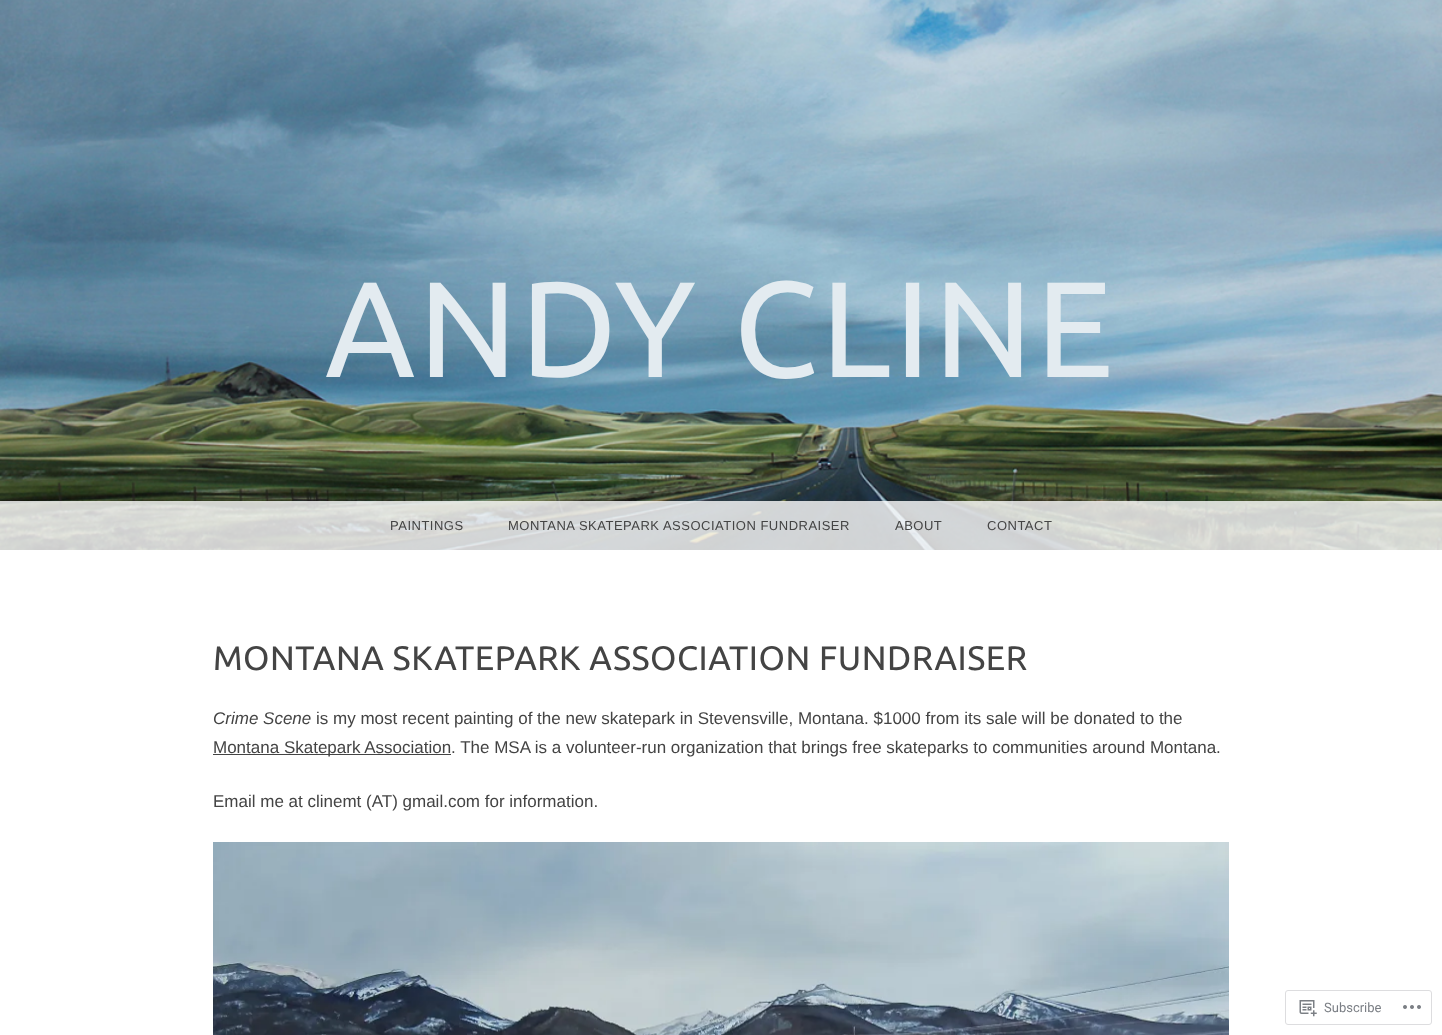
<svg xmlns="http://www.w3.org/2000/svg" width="1442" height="1035">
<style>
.a{font:136px Ubuntu;letter-spacing:3px;fill:#e3ebf0}
.b{font:13px Liberation Sans;letter-spacing:0.5px;fill:#444}
.c{font:34px Ubuntu;letter-spacing:0.5px;fill:#444}
.d{font:italic 17px Liberation Sans;fill:#444}
.e{font:17px Liberation Sans;fill:#444}
.f{font:13px Roboto;fill:#7b7f85}
</style>
<rect width="100%" height="100%" fill="#fff"/>
<image href="1.png" x="0" y="0" width="1442" height="550"/>
<path fill="#ffffffcc" d="M0 501h1442v49H0z"/>
<path fill="#444" d="M213 754h238v1H213z"/>
<image href="2.png" x="213" y="842" width="1016" height="193"/>
<rect fill="none" stroke="#dddddf" x="1285.5" y="990.5" width="146" height="34" rx="2.5"/>
<image href="3.png" x="1299" y="1000" width="18" height="17"/>
<image href="4.png" x="1403" y="1005" width="18" height="4"/>
<text class="a" x="325" y="377">ANDY CLINE</text>
<text class="b" x="390" y="530">PAINTINGS</text>
<text class="b" x="508" y="530">MONTANA SKATEPARK ASSOCIATION FUNDRAISER</text>
<text class="b" x="895" y="530">ABOUT</text>
<text class="b" x="987" y="530">CONTACT</text>
<text class="c" x="213" y="670">MONTANA SKATEPARK ASSOCIATION FUNDRAISER</text>
<text class="d" x="213" y="724">Crime Scene</text>
<text class="e" x="316" y="724">is my most recent painting of the new skatepark in Stevensville, Montana. $1000 from its sale will be donated to the</text>
<text class="e" x="213" y="753">Montana Skatepark Association</text>
<text class="e" x="451" y="753">. The MSA is a volunteer-run organization that brings free skateparks to communities around Montana.</text>
<text class="e" x="213" y="807">Email me at clinemt (AT) gmail.com for information.</text>
<text class="f" x="1324" y="1012">Subscribe</text>
</svg>
